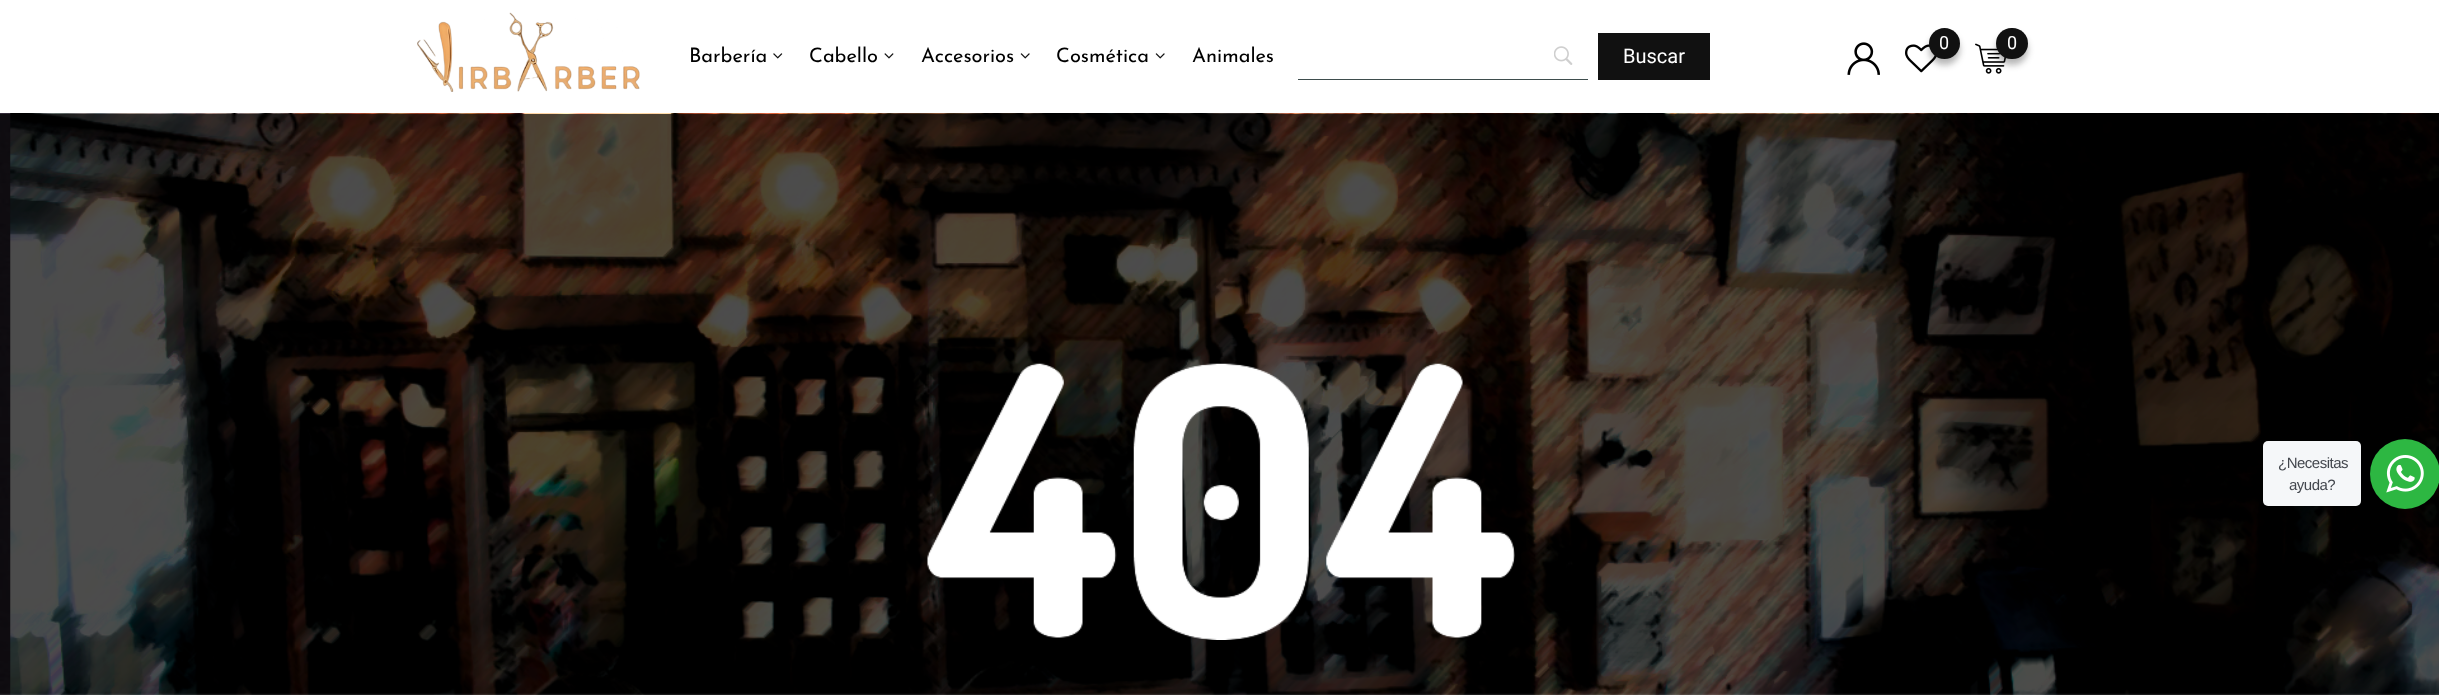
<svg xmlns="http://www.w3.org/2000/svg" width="2439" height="695">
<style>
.a{font:18px Roboto;fill:#fff}
.b{font:20px Josefin Sans;fill:#000}
.c{font:20px Roboto;fill:#fff}
.d{font:15px Liberation Sans;letter-spacing:-0.5px;fill:#43474e}
</style>
<rect width="100%" height="100%" fill="#fff"/>
<image href="1.png" x="417" y="12" width="223" height="80"/>
<image href="2.png" x="1847" y="42" width="33" height="33"/>
<image href="3.png" x="1905" y="44" width="32" height="29"/>
<rect fill="#1111114d" filter="blur(3px)" x="1929" y="34" width="31" height="31" rx="15.5"/>
<circle fill="#111" cx="1944.5" cy="43.5" r="15.5"/>
<image href="4.png" x="1975" y="43" width="31" height="31"/>
<rect fill="#1111114d" filter="blur(3px)" x="1996" y="34" width="32" height="31" rx="15.5"/>
<rect fill="#111" x="1996" y="28" width="32" height="31" rx="15.5"/>
<image href="5.png" x="773" y="53" width="10" height="6"/>
<image href="6.png" x="884" y="53" width="10" height="6"/>
<image href="7.png" x="1020" y="53" width="10" height="6"/>
<image href="7.png" x="1155" y="53" width="10" height="6"/>
<image href="8.png" x="1554" y="46" width="19" height="19"/>
<path fill="#3e4d4d" d="M1298 79h290v1H1298z"/>
<path fill="#111" d="M1598 33h112v47H1598z"/>
<image href="9.png" x="0" y="113" width="2439" height="582"/>
<image href="10.png" x="926" y="363" width="589" height="277"/>
<rect fill="#f5f7f9" x="2263" y="441" width="98" height="65" rx="5"/>
<circle fill="#2db742" cx="2405" cy="474" r="35"/>
<image href="11.png" x="2386" y="455" width="38" height="38"/>
<text class="a" x="1939" y="49">0</text>
<text class="a" x="2007" y="49">0</text>
<text class="b" x="689" y="62">Barbería</text>
<text class="b" x="809" y="62">Cabello</text>
<text class="b" x="921" y="62">Accesorios</text>
<text class="b" x="1056" y="62">Cosmética</text>
<text class="b" x="1192" y="62">Animales</text>
<text class="c" x="1623" y="63">Buscar</text>
<text class="d" x="2278" y="468">¿Necesitas</text>
<text class="d" x="2289" y="490">ayuda?</text>
</svg>
